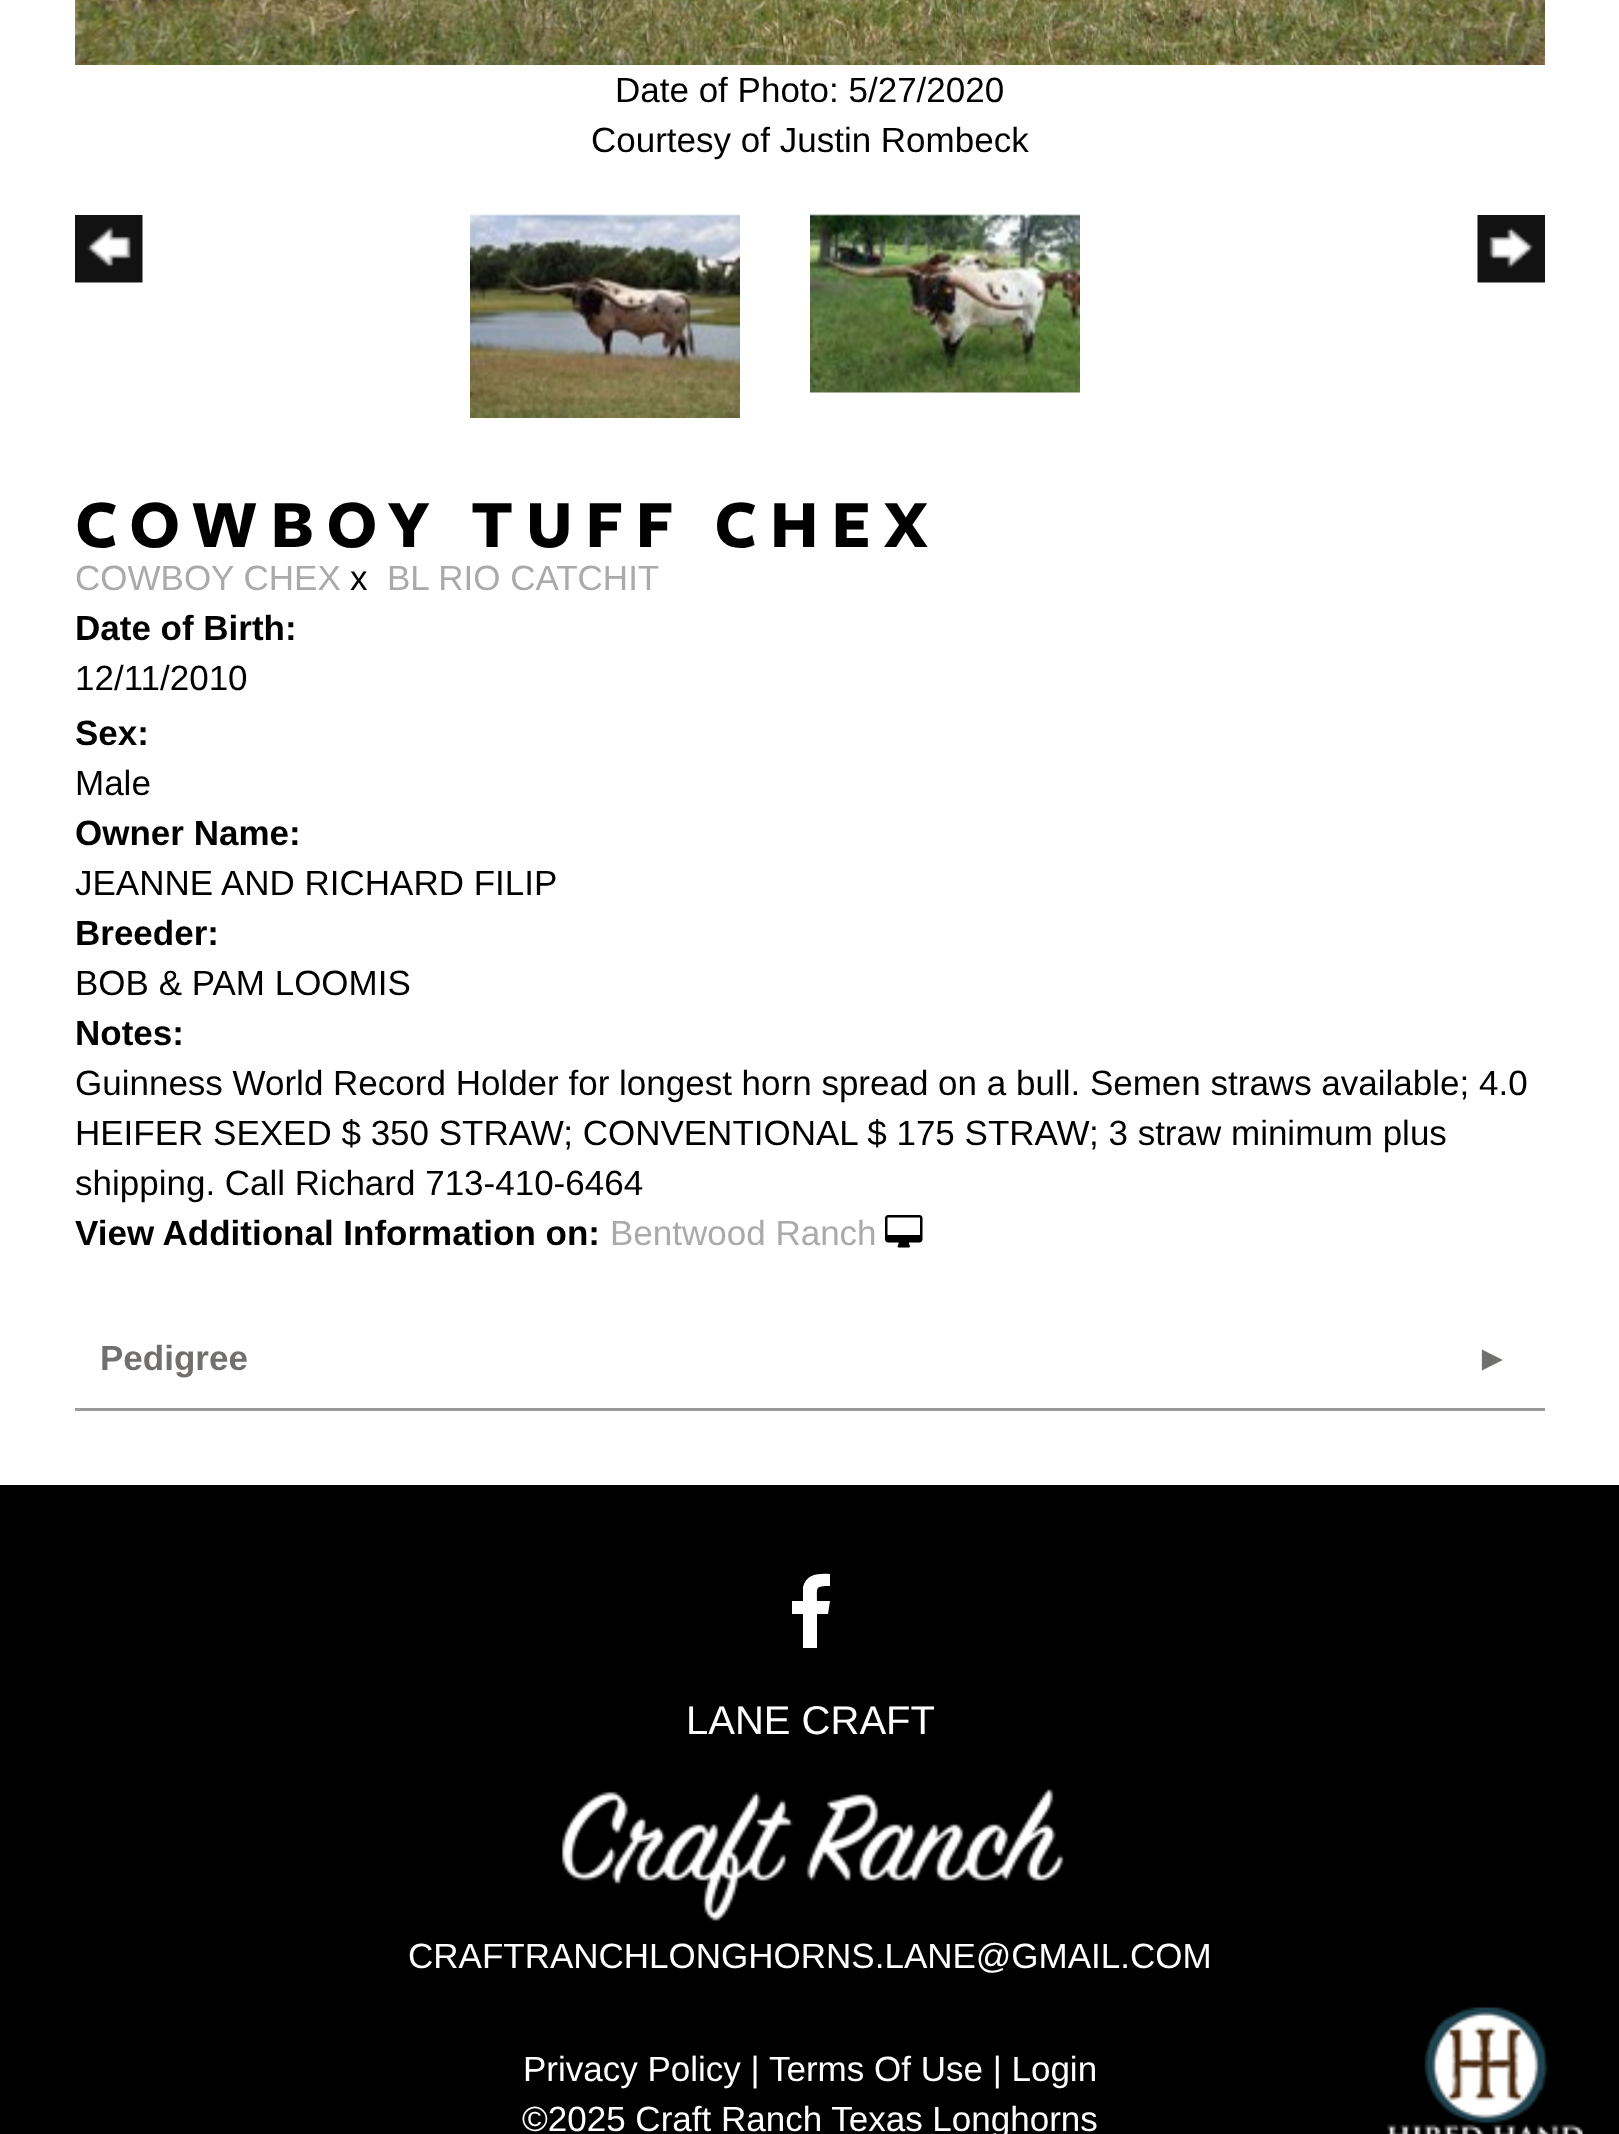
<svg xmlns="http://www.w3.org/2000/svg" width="1619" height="2134">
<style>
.a{font:35px Liberation Sans;fill:#000}
.b{font:bold 70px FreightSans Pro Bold;letter-spacing:12.5px;fill:#000}
.c{font:35px Liberation Sans;fill:#aaa}
.d{font:bold 35px Liberation Sans;fill:#000}
.e{font:bold 35px Liberation Sans;fill:#726f6f}
.f{font:40px Liberation Sans;fill:#fff}
.g{font:35px Liberation Sans;fill:#fff}
</style>
<rect width="100%" height="100%" fill="#fff"/>
<image href="1.png" x="75" y="0" width="1470" height="65"/>
<image href="2.png" x="75" y="215" width="68" height="68"/>
<image href="3.png" x="470" y="214" width="270" height="204"/>
<image href="4.png" x="810" y="214" width="270" height="179"/>
<image href="5.png" x="1477" y="215" width="68" height="68"/>
<image href="6.png" x="885" y="1215" width="38" height="33"/>
<path fill="#9b9999" d="M75 1408h1470v3H75z"/>
<path fill="#000" d="M0 1485h1619v649H0z"/>
<path fill="#fff" d="M830 1574v12c-15 0-13 1-13 15h13l-2 13h-11v34h-14v-34h-11v-13h11v-14c3-13 16-14 27-13z"/>
<image href="7.png" x="561" y="1789" width="503" height="132"/>
<image href="8.png" x="1387" y="2007" width="196" height="127"/>
<text class="a" x="615" y="102">Date of Photo: 5/27/2020</text>
<text class="a" x="591" y="152">Courtesy of Justin Rombeck</text>
<text class="b" x="75" y="547">COWBOY TUFF CHEX</text>
<text class="c" x="75" y="590">COWBOY CHEX</text>
<text class="a" x="350" y="590">x</text>
<text class="c" x="387" y="590">BL RIO CATCHIT</text>
<text class="d" x="75" y="640">Date of Birth:</text>
<text class="a" x="75" y="690">12/11/2010</text>
<text class="d" x="75" y="745">Sex:</text>
<text class="a" x="75" y="795">Male</text>
<text class="d" x="75" y="845">Owner Name:</text>
<text class="a" x="75" y="895">JEANNE AND RICHARD FILIP</text>
<text class="d" x="75" y="945">Breeder:</text>
<text class="a" x="75" y="995">BOB &amp; PAM LOOMIS</text>
<text class="d" x="75" y="1045">Notes:</text>
<text class="a" x="75" y="1095">Guinness World Record Holder for longest horn spread on a bull. Semen straws available; 4.0</text>
<text class="a" x="75" y="1145">HEIFER SEXED $ 350 STRAW; CONVENTIONAL $ 175 STRAW; 3 straw minimum plus</text>
<text class="a" x="75" y="1195">shipping. Call Richard 713-410-6464</text>
<text class="d" x="75" y="1245">View Additional Information on:</text>
<text class="c" x="610" y="1245">Bentwood Ranch</text>
<text class="e" x="100" y="1370">Pedigree</text>
<text class="e" x="1475" y="1370">►</text>
<text class="f" x="686" y="1734">LANE CRAFT</text>
<text class="g" x="408" y="1968">CRAFTRANCHLONGHORNS.LANE@GMAIL.COM</text>
<text class="g" x="523" y="2081">Privacy Policy |</text>
<text class="g" x="769" y="2081">Terms Of Use | Login</text>
<text class="g" x="522" y="2131">©2025 Craft Ranch Texas Longhorns</text>
</svg>
